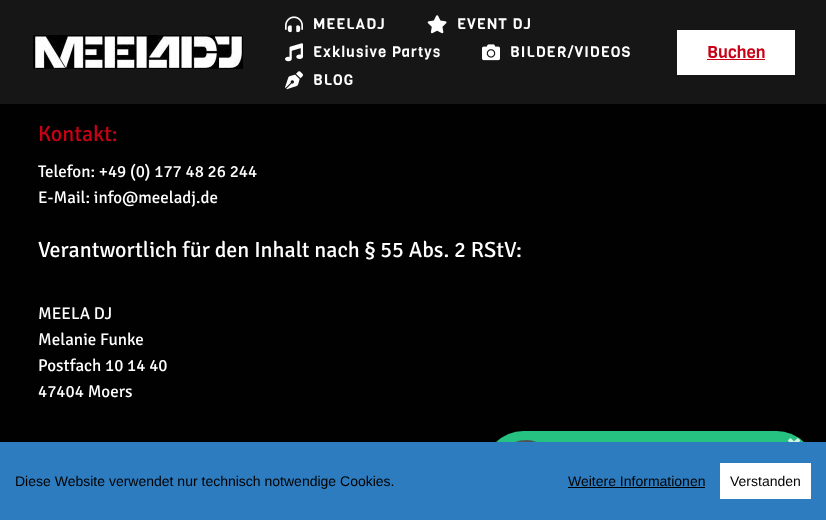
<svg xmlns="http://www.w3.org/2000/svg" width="826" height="520">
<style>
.a{font:15px Viga;letter-spacing:1px;fill:#fff}
.b{font:17px Viga;fill:#c90016}
.c{font:22px Signika;fill:#c90016}
.d{font:17px Signika;fill:#fff}
.e{font:22px Signika;fill:#fff}
.f{font:14px Liberation Sans;fill:#000}
</style>
<rect width="100%" height="100%" fill="#010101"/>
<path fill="#161617" d="M0 0h826v104H0z"/>
<image href="1.png" x="33" y="35" width="210" height="34"/>
<image href="2.png" x="285" y="16" width="18" height="17"/>
<image href="3.png" x="427" y="15" width="20" height="19"/>
<image href="4.png" x="285" y="43" width="18" height="19"/>
<image href="5.png" x="482" y="44" width="18" height="17"/>
<image href="6.png" x="285" y="71" width="18" height="19"/>
<path fill="#fff" d="M677 30h118v45H677z"/>
<path fill="#c70017" d="M707 59h58v1H707z"/>
<rect fill="#26c281" x="484" y="431" width="332" height="79" rx="39.5"/>
<image href="7.png" x="515" y="440" width="22" height="2"/>
<image href="8.png" x="788" y="438" width="12" height="4"/>
<path fill="#2c7cbf" d="M0 442h826v78H0z"/>
<path fill="#000" d="M568 487h137v1H568z"/>
<path fill="#fff" d="M720 463h91v36H720z"/>
<text class="a" x="313" y="29">MEELADJ</text>
<text class="a" x="457" y="29">EVENT DJ</text>
<text class="a" x="313" y="57">Exklusive Partys</text>
<text class="a" x="510" y="57">BILDER/VIDEOS</text>
<text class="a" x="313" y="85">BLOG</text>
<text class="b" x="707" y="58">Buchen</text>
<text class="c" x="38" y="141">Kontakt:</text>
<text class="d" x="38" y="177">Telefon: +49 (0) 177 48 26 244</text>
<text class="d" x="38" y="203">E-Mail: info@meeladj.de</text>
<text class="e" x="38" y="257">Verantwortlich für den Inhalt nach § 55 Abs. 2 RStV:</text>
<text class="d" x="38" y="319">MEELA DJ</text>
<text class="d" x="38" y="345">Melanie Funke</text>
<text class="d" x="38" y="371">Postfach 10 14 40</text>
<text class="d" x="38" y="397">47404 Moers</text>
<text class="f" x="15" y="486">Diese Website verwendet nur technisch notwendige Cookies.</text>
<text class="f" x="568" y="486">Weitere Informationen</text>
<text class="f" x="730" y="486">Verstanden</text>
</svg>
